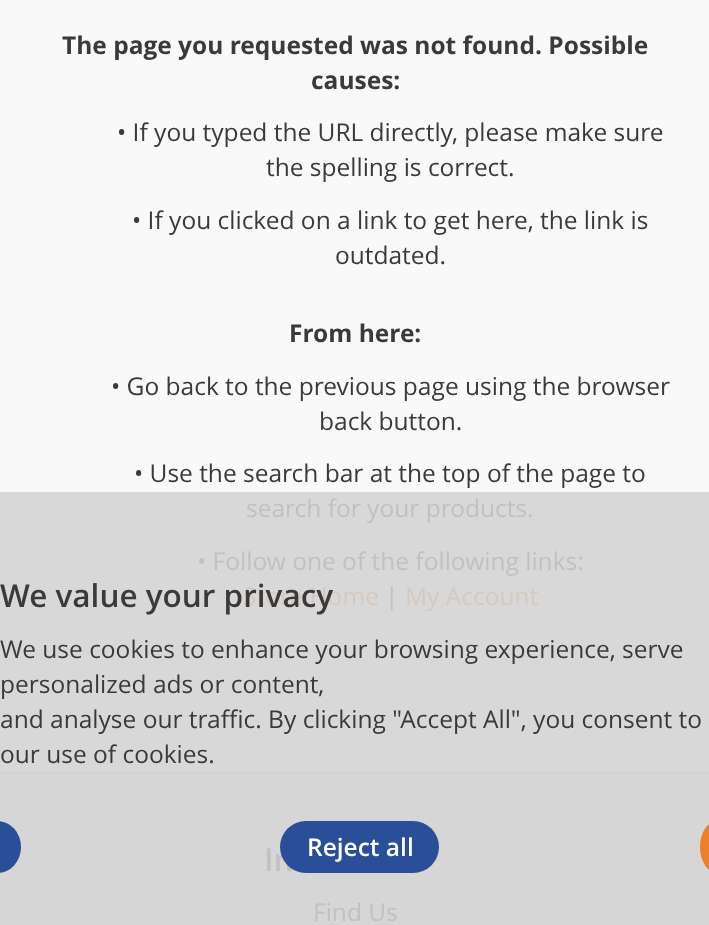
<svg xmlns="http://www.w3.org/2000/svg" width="709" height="925">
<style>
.a{font:bold 24.5px Open Sans;fill:#3b3a3a}
.b{font:24.5px Open Sans;fill:#3b3a3a}
.c{font:24.5px Open Sans;fill:#c1c1c1}
.d{font:24.5px Open Sans;fill:#d6c9bf}
.e{font:600 31.5px Open Sans;fill:#3b3a3a}
.f{font:600 31.5px Open Sans;fill:#c1c1c1}
.g{font:600 24.5px Open Sans;fill:#fff}
</style>
<rect width="100%" height="100%" fill="#f9f9f9"/>
<path fill="#d8d8d8" d="M0 492h709v280H0z"/>
<path fill="#d6d6d6" d="M0 774h709v151H0z"/>
<rect fill="#294f98" x="-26" y="821" width="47" height="52" rx="26"/>
<rect fill="#ec7f29" x="700" y="821" width="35" height="52" rx="26"/>
<path fill="#d2d2d2" d="M0 772h709v2H0z"/>
<text class="a" x="62" y="54">The page you requested was not found. Possible</text>
<text class="a" x="311" y="89">causes:</text>
<text class="b" x="117" y="141">• If you typed the URL directly, please make sure</text>
<text class="b" x="266" y="176">the spelling is correct.</text>
<text class="b" x="132" y="229">• If you clicked on a link to get here, the link is</text>
<text class="b" x="335" y="264">outdated.</text>
<text class="a" x="289" y="342">From here:</text>
<text class="b" x="111" y="395">• Go back to the previous page using the browser</text>
<text class="b" x="319" y="430">back button.</text>
<text class="b" x="134" y="482">• Use the search bar at the top of the page to</text>
<text class="c" x="246" y="517">search for your products.</text>
<text class="c" x="197" y="570">• Follow one of the following links:</text>
<text class="d" x="243" y="605">Store Home</text>
<text class="c" x="385" y="605">|</text>
<text class="d" x="405" y="605">My Account</text>
<text class="e" x="0" y="607">We value your privacy</text>
<text class="b" x="0" y="658">We use cookies to enhance your browsing experience, serve</text>
<text class="b" x="0" y="693">personalized ads or content,</text>
<text class="b" x="0" y="728">and analyse our traffic. By clicking "Accept All", you consent to</text>
<text class="b" x="0" y="763">our use of cookies.</text>
<text class="f" x="264" y="871">In</text>
<rect fill="#294f98" x="280" y="821" width="159" height="52" rx="26"/>
<text class="g" x="307" y="856">Reject all</text>
<text class="c" x="313" y="921">Find Us</text>
</svg>
